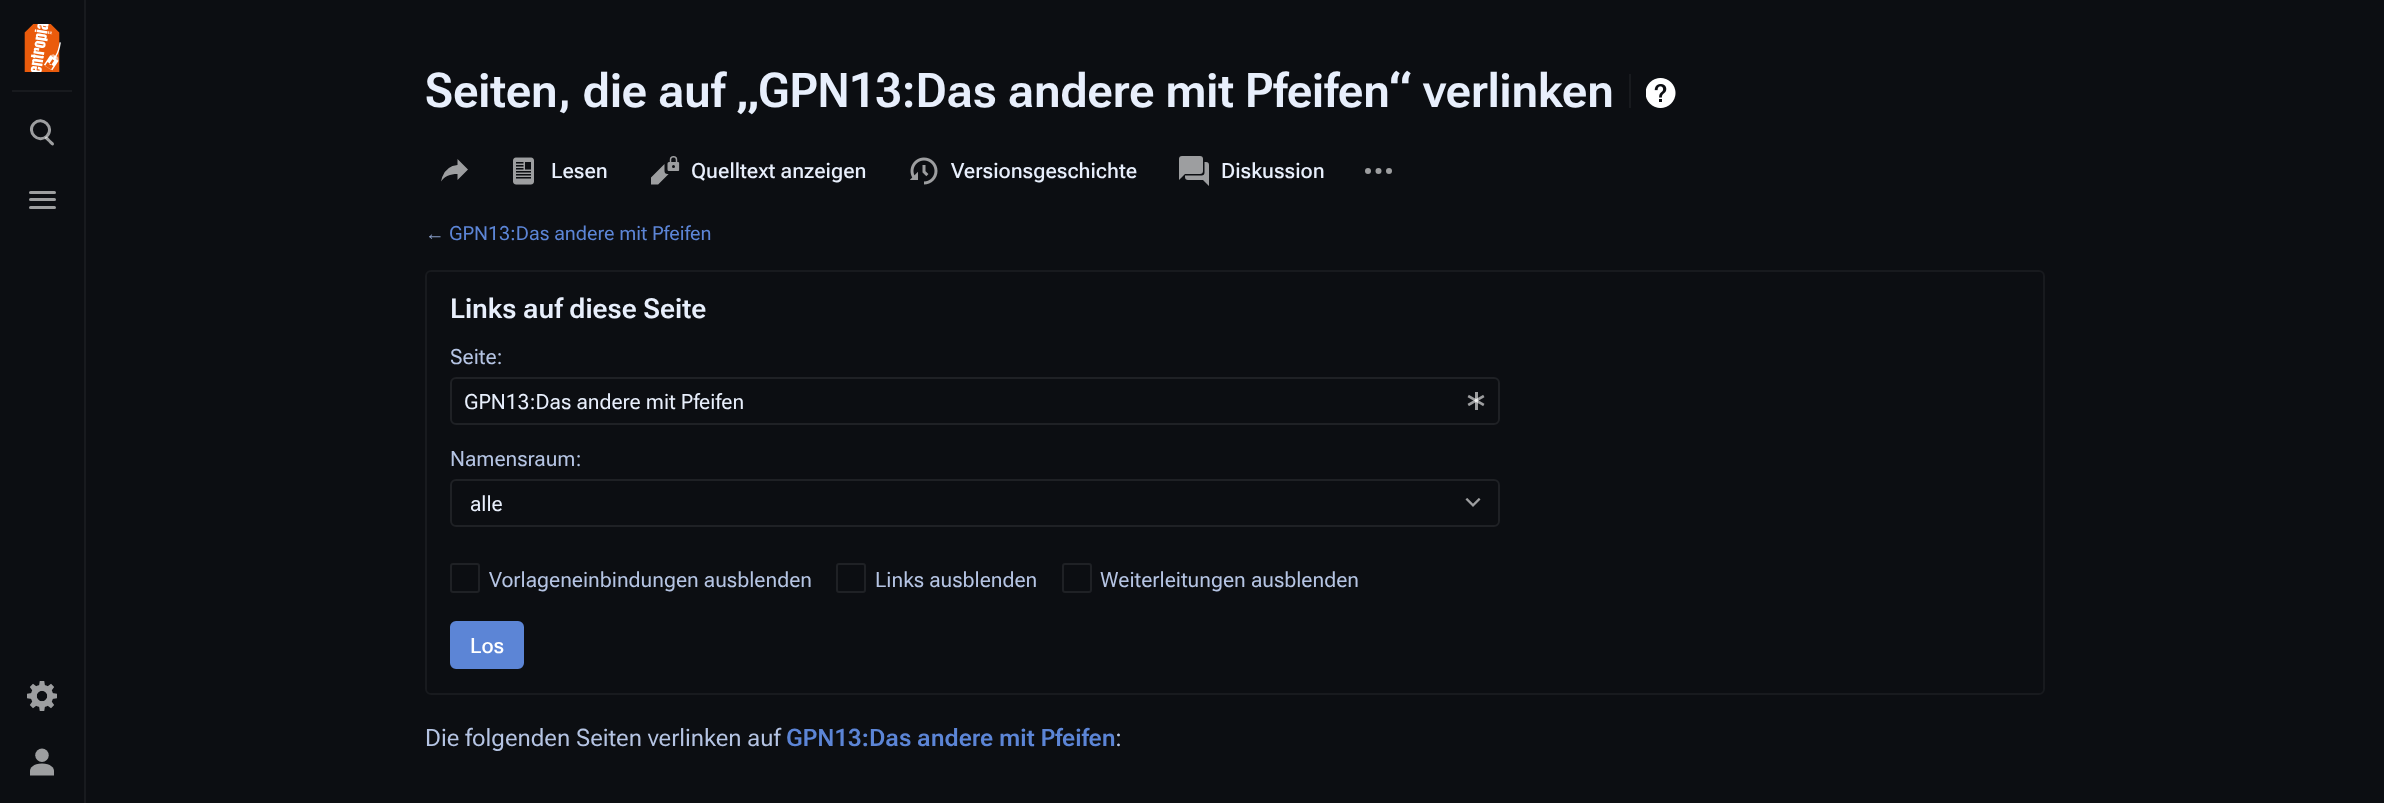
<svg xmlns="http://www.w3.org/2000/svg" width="2384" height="803">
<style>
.a{font:600 48px 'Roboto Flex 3';fill:#e8effc}
.b{font:500 21px Roboto Flex;fill:#e8effc}
.c{font:19.5px Liberation Sans;fill:#879bc5}
.d{font:19.5px 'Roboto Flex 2';fill:#5c85d6}
.e{font:600 27.5px 'Roboto Flex 2';fill:#e8effc}
.f{font:21px 'Roboto Flex 3';fill:#b5c4e3}
.g{font:21px 'Roboto Flex 3';fill:#e8effc}
.h{font:500 21px Roboto Flex;fill:#fff}
.i{font:24px Roboto Flex;fill:#b5c4e3}
.j{font:600 24px Roboto Flex;fill:#5c85d6}
</style>
<rect width="100%" height="100%" fill="#0c0e12"/>
<path fill="#181a1e" d="M84 0h2v803H84z"/>
<path fill="#181a1e" d="M12 90h60v2H12z"/>
<image href="1.png" x="24" y="24" width="37" height="48"/>
<path fill="#9e9fa0" d="M45.5 137c1.5-2 4 2 5 3c1 1 5 3.5 3 5c-1.5 2-4-2-5-3c-1-1-5-3.5-3-5z"/>
<path fill="none" stroke="#ffffff99" stroke-width="3" d="M34 123.5c8.5-8.5 21 4.5 13 12.5c-8.5 8.5-21-4.5-13-12.5z"/>
<rect fill="#9e9fa0" x="29" y="191" width="27" height="3" rx="1.5"/>
<rect fill="#9e9fa0" x="29" y="198" width="27" height="3" rx="1.5"/>
<rect fill="#9e9fa0" x="29" y="206" width="27" height="3" rx="1.5"/>
<image href="2.png" x="27" y="681" width="30" height="30"/>
<image href="3.png" x="30" y="748" width="24" height="28"/>
<path fill="#181a1e" d="M1629 74h2v34H1629z"/>
<image href="4.png" x="1646" y="78" width="30" height="30"/>
<image href="5.png" x="441" y="159" width="27" height="23"/>
<image href="6.png" x="513" y="157" width="21" height="28"/>
<image href="7.png" x="651" y="156" width="29" height="29"/>
<image href="8.png" x="910" y="157" width="28" height="28"/>
<image href="9.png" x="1179" y="156" width="30" height="30"/>
<image href="10.png" x="1365" y="168" width="27" height="6"/>
<rect fill="none" stroke="#181a1e" stroke-width="2" x="426" y="271" width="1618" height="423" rx="5"/>
<rect fill="none" stroke="#1f2125" stroke-width="2" x="451" y="378" width="1048" height="46" rx="5"/>
<image href="11.png" x="1467" y="392" width="18" height="18"/>
<rect fill="none" stroke="#1f2125" stroke-width="2" x="451" y="480" width="1048" height="46" rx="5"/>
<image href="12.png" x="1465" y="498" width="16" height="9"/>
<rect fill="none" stroke="#1f2125" stroke-width="2" x="451" y="564" width="28" height="28" rx="2"/>
<rect fill="none" stroke="#1f2125" stroke-width="2" x="837" y="564" width="28" height="28" rx="2"/>
<rect fill="none" stroke="#1f2125" stroke-width="2" x="1063" y="564" width="28" height="28" rx="2"/>
<rect fill="#5c85d6" stroke="#5c85d6" stroke-width="2" x="451" y="622" width="72" height="46" rx="5"/>
<text class="a" x="425" y="107">Seiten, die auf „GPN13:Das andere mit Pfeifen“ verlinken</text>
<text class="b" x="551" y="178">Lesen</text>
<text class="b" x="691" y="178">Quelltext anzeigen</text>
<text class="b" x="951" y="178">Versionsgeschichte</text>
<text class="b" x="1221" y="178">Diskussion</text>
<text class="c" x="425" y="240">←</text>
<text class="d" x="449" y="240">GPN13:Das andere mit Pfeifen</text>
<text class="e" x="450" y="318">Links auf diese Seite</text>
<text class="f" x="450" y="364">Seite:</text>
<text class="g" x="464" y="409">GPN13:Das andere mit Pfeifen</text>
<text class="f" x="450" y="466">Namensraum:</text>
<text class="g" x="470" y="511">alle</text>
<text class="f" x="489" y="587">Vorlageneinbindungen ausblenden</text>
<text class="f" x="875" y="587">Links ausblenden</text>
<text class="f" x="1100" y="587">Weiterleitungen ausblenden</text>
<text class="h" x="470" y="653">Los</text>
<text class="i" x="425" y="746">Die folgenden Seiten verlinken auf</text>
<text class="j" x="786" y="746">GPN13:Das andere mit Pfeifen</text>
<text class="i" x="1115" y="746">:</text>
</svg>
